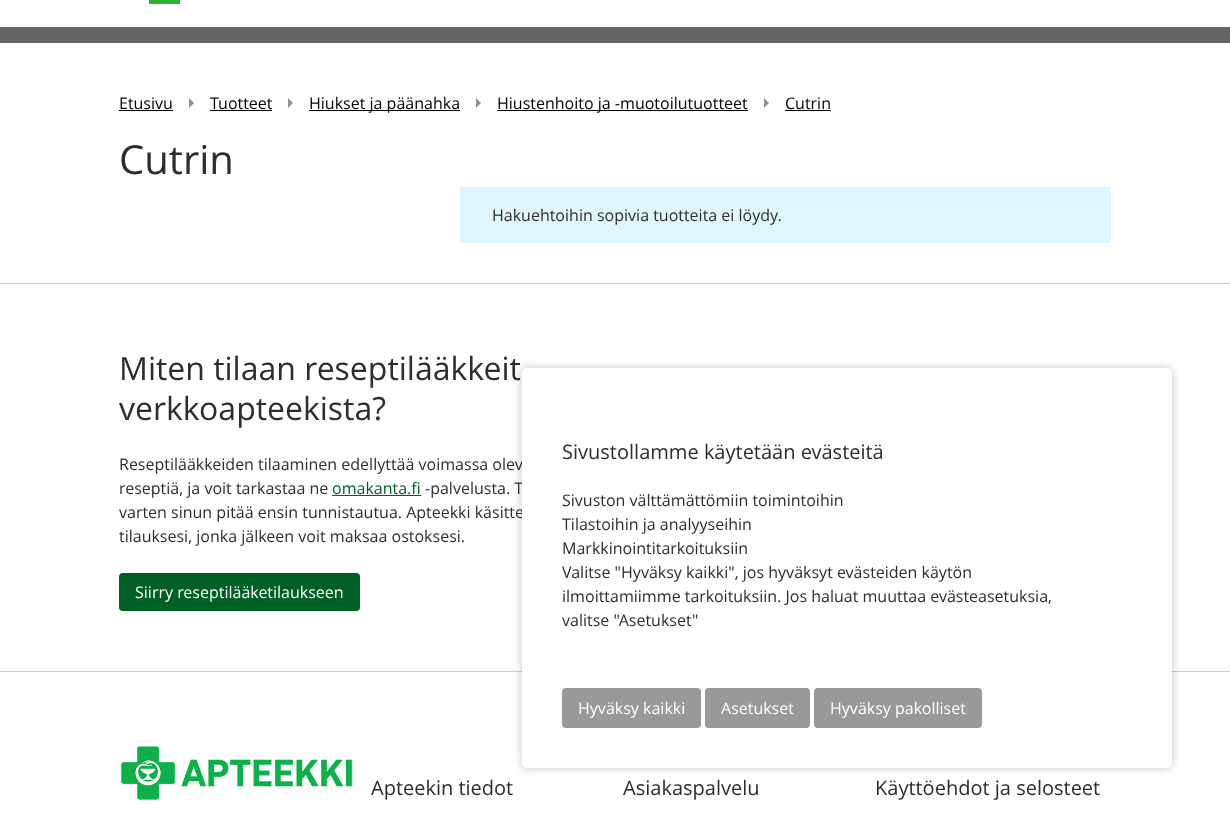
<svg xmlns="http://www.w3.org/2000/svg" width="1230" height="826">
<style>
.a{font:16px Open Sans;fill:#000}
.b{font:40px Open Sans;fill:#2d2d2d}
.c{font:16px Open Sans;fill:#2d2d2d}
.d{font:32px Open Sans;fill:#2d2d2d}
.e{font:16px Open Sans;fill:#005f25}
.f{font:16px Open Sans;fill:#fff}
.g{font:20px Open Sans;fill:#2d2d2d}
</style>
<rect width="100%" height="100%" fill="#fff"/>
<path fill="#2eb135" d="M149 0h31v4H149z"/>
<path fill="#666" d="M0 27h1230v16H0z"/>
<path fill="#000" d="M119 110h54v1H119z"/>
<path fill="#919191" d="M189 108l5-5l-5-5z"/>
<path fill="#000" d="M210 110h62v1H210z"/>
<path fill="#919191" d="M288 108l5-5l-5-5z"/>
<path fill="#000" d="M309 110h151v1H309z"/>
<path fill="#919191" d="M476 108l5-5l-5-5z"/>
<path fill="#000" d="M497 110h251v1H497z"/>
<path fill="#919191" d="M764 108l5-5l-5-5z"/>
<path fill="#000" d="M785 110h46v1H785z"/>
<path fill="#def6fe" d="M460 187h651v56H460z"/>
<path fill="#ccc" d="M0 283h1230v1H0z"/>
<path fill="#005f25" d="M332 495h89v1H332z"/>
<rect fill="#005f25" x="119" y="573" width="241" height="38" rx="4"/>
<path fill="#ccc" d="M0 671h1230v1H0z"/>
<image href="1.png" x="120" y="746" width="233" height="54"/>
<rect fill="#54747866" filter="blur(5px)" x="522" y="368" width="650" height="400" rx="5"/>
<text class="a" x="119" y="109">Etusivu</text>
<text class="a" x="210" y="109">Tuotteet</text>
<text class="a" x="309" y="109">Hiukset ja päänahka</text>
<text class="a" x="497" y="109">Hiustenhoito ja -muotoilutuotteet</text>
<text class="a" x="785" y="109">Cutrin</text>
<text class="b" x="119" y="174">Cutrin</text>
<text class="c" x="492" y="221">Hakuehtoihin sopivia tuotteita ei löydy.</text>
<text class="d" x="119" y="380">Miten tilaan reseptilääkkeit</text>
<text class="d" x="119" y="420">verkkoapteekista?</text>
<text class="c" x="119" y="470">Reseptilääkkeiden tilaaminen edellyttää voimassa olev</text>
<text class="c" x="119" y="494">reseptiä, ja voit tarkastaa ne</text>
<text class="e" x="332" y="494">omakanta.fi</text>
<text class="c" x="425" y="494">-palvelusta. T</text>
<text class="c" x="119" y="518">varten sinun pitää ensin tunnistautua. Apteekki käsitte</text>
<text class="c" x="119" y="542">tilauksesi, jonka jälkeen voit maksaa ostoksesi.</text>
<text class="f" x="135" y="598">Siirry reseptilääketilaukseen</text>
<text class="g" x="371" y="795">Apteekin tiedot</text>
<text class="g" x="623" y="795">Asiakaspalvelu</text>
<text class="g" x="875" y="795">Käyttöehdot ja selosteet</text>
<rect fill="#fff" x="522" y="368" width="650" height="400" rx="5"/>
<text class="g" x="562" y="459">Sivustollamme käytetään evästeitä</text>
<text class="c" x="562" y="506">Sivuston välttämättömiin toimintoihin</text>
<text class="c" x="562" y="530">Tilastoihin ja analyyseihin</text>
<text class="c" x="562" y="554">Markkinointitarkoituksiin</text>
<text class="c" x="562" y="578">Valitse "Hyväksy kaikki", jos hyväksyt evästeiden käytön</text>
<text class="c" x="562" y="602">ilmoittamiimme tarkoituksiin. Jos haluat muuttaa evästeasetuksia,</text>
<text class="c" x="562" y="626">valitse "Asetukset"</text>
<rect fill="#999" x="562" y="688" width="139" height="40" rx="4"/>
<text class="f" x="578" y="714">Hyväksy kaikki</text>
<rect fill="#999" x="705" y="688" width="105" height="40" rx="4"/>
<text class="f" x="721" y="714">Asetukset</text>
<rect fill="#999" x="814" y="688" width="168" height="40" rx="4"/>
<text class="f" x="830" y="714">Hyväksy pakolliset</text>
</svg>
